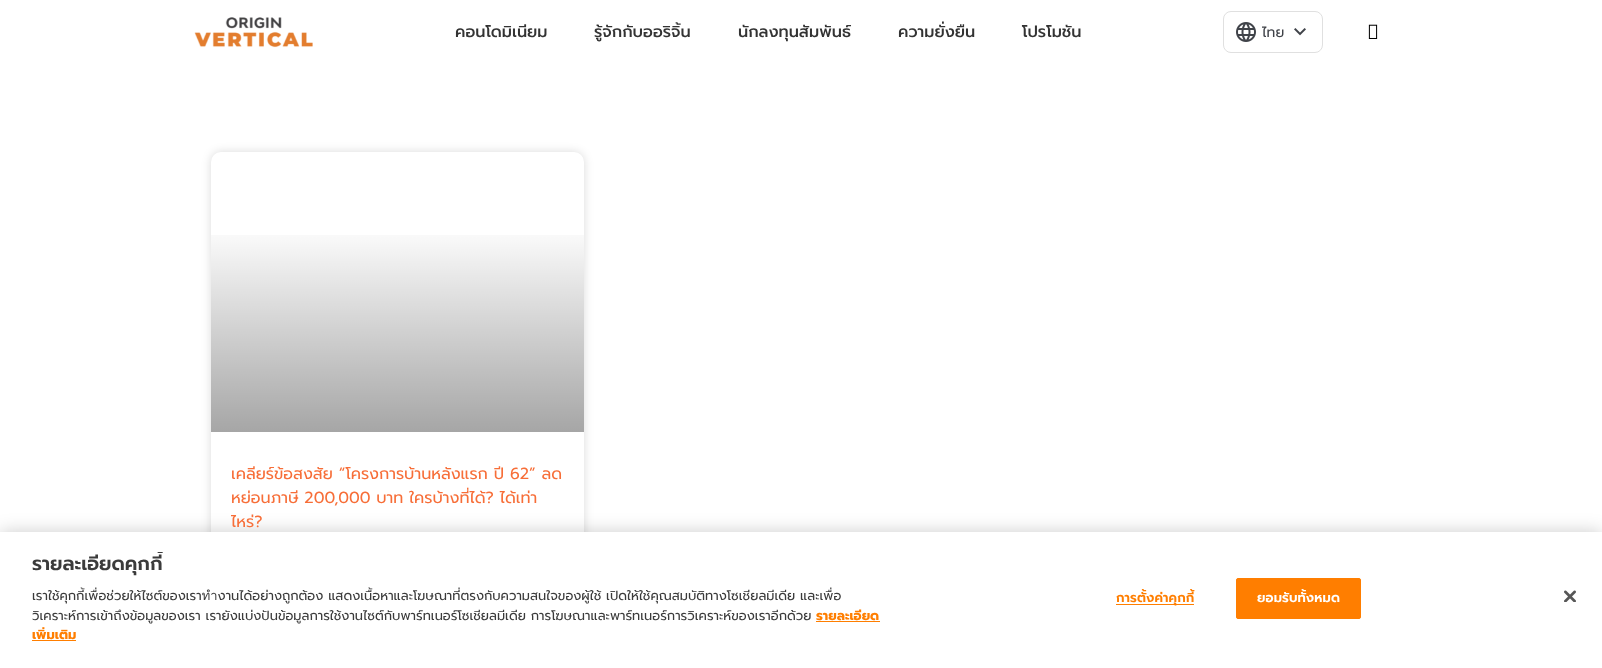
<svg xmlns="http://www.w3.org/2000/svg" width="1602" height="668">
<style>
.a{font:500 16px Prompt;fill:#333}
.b{font:14px Prompt;fill:#404349}
.c{font:16px Prompt;fill:#f76e38}
.d{font:600 19.25px Prompt;fill:#3b3b3b}
.e{font:13px Prompt;fill:#3b3b3b}
.f{font:bold 13px Prompt;fill:#ff7e00}
.g{font:600 13px Prompt;letter-spacing:0.1px;fill:#ff7e00}
.h{font:600 13px Prompt;letter-spacing:0.1px;fill:#fff}
</style>
<defs>
<linearGradient id="g1" gradientUnits="userSpaceOnUse" x1="398" y1="432" x2="398" y2="152"><stop offset="0" stop-color="#000" stop-opacity="0.35"/><stop offset="0.75" stop-color="#000" stop-opacity="0"/></linearGradient>
<clipPath id="clip1"><path d="M32 552h849v106H32z"/></clipPath>
</defs>
<rect width="100%" height="100%" fill="#fff"/>
<path fill="#00000038" filter="blur(0.5px)" d="M0 0h1602v64H0z"/>
<path fill="#fff" d="M0 0h1602v64H0z"/>
<image href="1.png" x="194" y="17" width="119" height="31"/>
<rect fill="none" stroke="#e0e0e0" x="1223.5" y="11.5" width="99" height="41" rx="7.5"/>
<image href="2.png" x="1236" y="22" width="20" height="20"/>
<image href="3.png" x="1294" y="28" width="12" height="8"/>
<image href="4.png" x="1368" y="24" width="10" height="15"/>
<rect fill="#00000026" filter="blur(5px)" x="211" y="152" width="373" height="431" rx="10"/>
<rect fill="#fff" x="211" y="152" width="373" height="431" rx="10"/>
<path fill="url(#g1)" d="M211 235h373v197H211z"/>
<path fill="#00000033" filter="blur(9px)" d="M0 532h1602v136H0z"/>
<path fill="#fff" d="M0 532h1602v136H0z"/>
<path fill="#ff7e00" d="M816 621h64v1H816z"/>
<path fill="#ff7e00" d="M32 640h44v1H32z"/>
<path fill="#ff7e00" d="M1116 604h78v1H1116z"/>
<rect fill="#ff7e00" stroke="#ff7e00" x="1236.5" y="578.5" width="124" height="40" rx="1.5"/>
<image href="5.png" x="1564" y="590" width="12" height="12"/>
<text class="a" x="455" y="37">คอนโดมิเนียม</text>
<text class="a" x="594" y="37">รู้จักกับออริจิ้น</text>
<text class="a" x="738" y="37">นักลงทุนสัมพันธ์</text>
<text class="a" x="898" y="37">ความยั่งยืน</text>
<text class="a" x="1022" y="37">โปรโมชัน</text>
<text class="b" x="1262" y="37">ไทย</text>
<text class="c" x="231" y="479">เคลียร์ข้อสงสัย “โครงการบ้านหลังแรก ปี 62” ลด</text>
<text class="c" x="231" y="503">หย่อนภาษี 200,000 บาท ใครบ้างที่ได้? ได้เท่า</text>
<text class="c" x="231" y="527">ไหร่?</text>
<g clip-path="url(#clip1)">
<text class="d" x="32" y="570">รายละเอียดคุกกี้</text>
</g>
<text class="e" x="32" y="600">เราใช้คุกกี้เพื่อช่วยให้ไซต์ของเราทำงานได้อย่างถูกต้อง แสดงเนื้อหาและโฆษณาที่ตรงกับความสนใจของผู้ใช้ เปิดให้ใช้คุณสมบัติทางโซเชียลมีเดีย และเพื่อ</text>
<g clip-path="url(#clip1)">
<text class="e" x="32" y="620">วิเคราะห์การเข้าถึงข้อมูลของเรา เรายังแบ่งปันข้อมูลการใช้งานไซต์กับพาร์ทเนอร์โซเชียลมีเดีย การโฆษณาและพาร์ทเนอร์การวิเคราะห์ของเราอีกด้วย</text>
</g>
<text class="f" x="816" y="620">รายละเอียด</text>
<g clip-path="url(#clip1)">
<text class="f" x="32" y="639">เพิ่มเติม</text>
</g>
<text class="g" x="1116" y="602">การตั้งค่าคุกกี้</text>
<text class="h" x="1257" y="602">ยอมรับทั้งหมด</text>
</svg>
